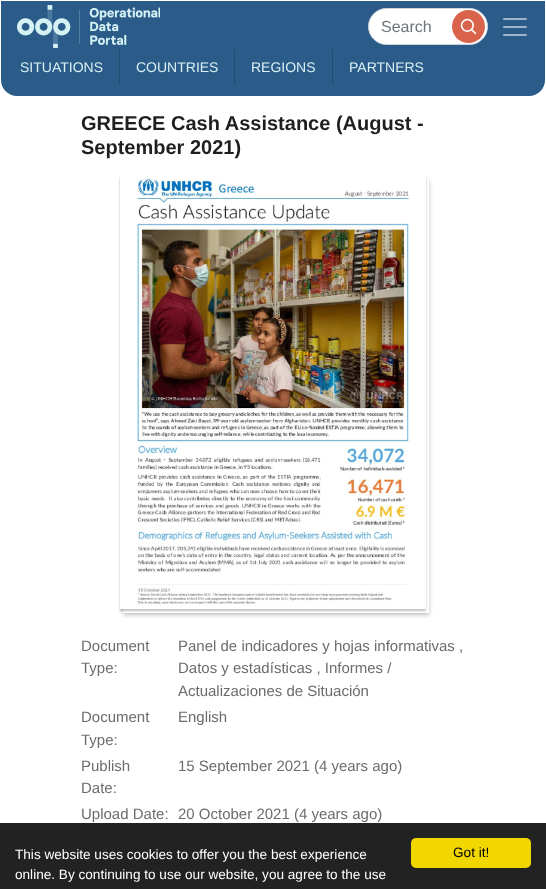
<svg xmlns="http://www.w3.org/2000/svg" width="546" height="889">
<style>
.a{font:16px Liberation Sans;fill:#6c757d}
.b{font:14px Liberation Sans;fill:#daf0f3}
.c{font:bold 20px Liberation Sans;fill:#1f1f1f}
.d{font:15px Liberation Sans;fill:#6c6c6c}
.e{font:13.6px Liberation Sans;fill:#fff}
.f{font:13.6px Liberation Sans;fill:#000}
</style>
<defs>
<clipPath id="clip1"><path d="M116 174h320v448h-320zm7 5h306v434h-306z" clip-rule="evenodd"/></clipPath>
</defs>
<rect width="100%" height="100%" fill="#fff"/>
<path fill="#2a5b89" stroke="#2a5b89" stroke-width="3" d="M2.5 2.5h541v77.5c0 8-6.5 14.5-14.5 14.5h-512c-8 0-14.5-6.5-14.5-14.5z"/>
<image href="1.png" x="17" y="5" width="143" height="43"/>
<rect fill="#fff" stroke="#ced4da" x="368.5" y="8.5" width="119" height="36" rx="18"/>
<circle fill="#da634b" cx="468.5" cy="26.5" r="16.5"/>
<image href="2.png" x="460" y="18" width="17" height="17"/>
<image href="3.png" x="503" y="18" width="24" height="18"/>
<path fill="#22496e" d="M119 49h1v36H119z"/>
<path fill="#22496e" d="M234 49h1v36H234z"/>
<path fill="#22496e" d="M332 49h1v36H332z"/>
<path fill="#00000040" filter="blur(1px)" d="M120 177h306v434H120z"/>
<g clip-path="url(#clip1)">
<path fill="#00000040" filter="blur(2px)" d="M123 181h306v434H123z"/>
</g>
<image href="4.png" x="120" y="175" width="306" height="434"/>
<path fill="#222" d="M0 823h546v66H0z"/>
<rect fill="#f1d600" x="411" y="838" width="120" height="30" rx="5"/>
<text class="a" x="381" y="32">Search</text>
<text class="b" x="20" y="72">SITUATIONS</text>
<text class="b" x="136" y="72">COUNTRIES</text>
<text class="b" x="251" y="72">REGIONS</text>
<text class="b" x="349" y="72">PARTNERS</text>
<text class="c" x="81" y="130">GREECE Cash Assistance (August -</text>
<text class="c" x="81" y="154">September 2021)</text>
<text class="d" x="81" y="651">Document</text>
<text class="d" x="81" y="673">Type:</text>
<text class="d" x="178" y="651">Panel de indicadores y hojas informativas ,</text>
<text class="d" x="178" y="673">Datos y estadísticas , Informes /</text>
<text class="d" x="178" y="696">Actualizaciones de Situación</text>
<text class="d" x="81" y="722">Document</text>
<text class="d" x="81" y="745">Type:</text>
<text class="d" x="178" y="722">English</text>
<text class="d" x="81" y="771">Publish</text>
<text class="d" x="81" y="793">Date:</text>
<text class="d" x="178" y="771">15 September 2021 (4 years ago)</text>
<text class="d" x="81" y="819">Upload Date:</text>
<text class="d" x="178" y="819">20 October 2021 (4 years ago)</text>
<text class="e" x="15" y="859">This website uses cookies to offer you the best experience</text>
<text class="e" x="15" y="879">online. By continuing to use our website, you agree to the use</text>
<text class="f" x="453" y="857">Got it!</text>
</svg>
